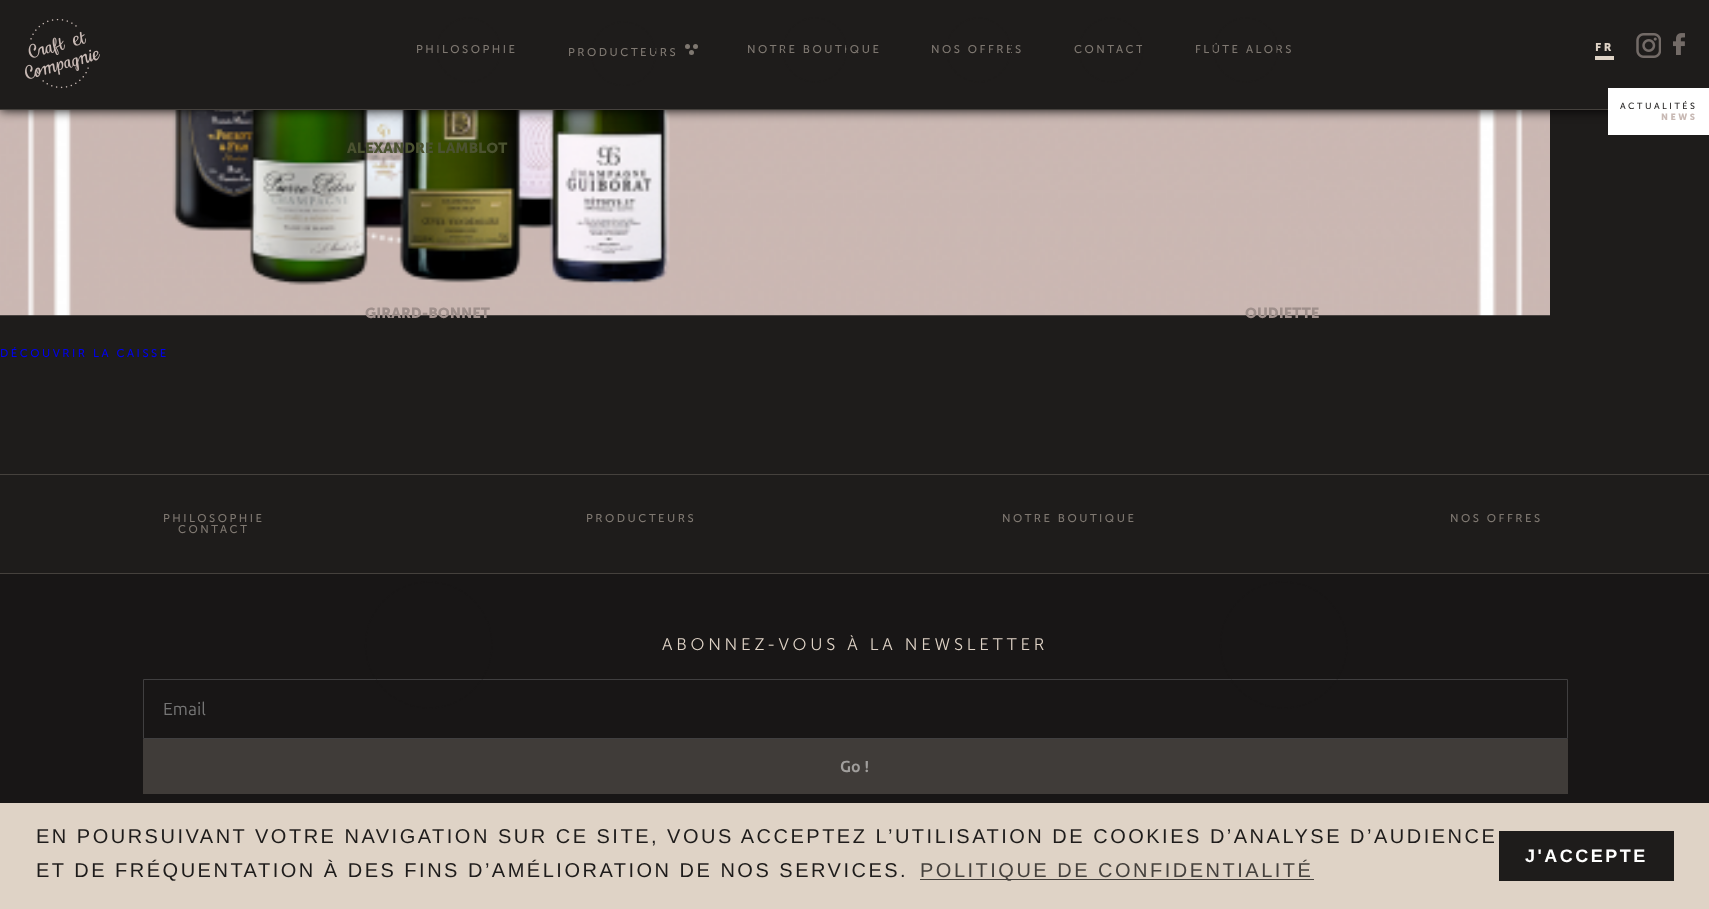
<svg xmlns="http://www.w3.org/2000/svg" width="1709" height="909">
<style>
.a{font:11.25px 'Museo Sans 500';letter-spacing:2.5px;fill:#7f7871}
.b{font:bold 11.25px 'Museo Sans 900';letter-spacing:2.5px;fill:#dfd3c6}
.c{font:9px 'Museo Sans 500';letter-spacing:2.5px;fill:#1e1c1b}
.d{font:bold 9px 'Museo Sans 900';letter-spacing:2.5px;fill:#c8b9b4}
.e{font:bold 14.6px 'Museo Sans 900';fill:#4b5230}
.f{font:bold 14.6px 'Museo Sans 900';fill:#9e8f8b}
.g{font:11.25px 'Museo Sans 500';letter-spacing:2.5px;fill:#00e}
.h{font:300 16.9px 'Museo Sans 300';letter-spacing:3.75px;fill:#dfd3c6}
.i{font:17.5px Ubuntu;fill:#757575}
.j{font:bold 16px Ubuntu;fill:#a09e9c}
.k{font:20px Liberation Sans;letter-spacing:2.5px;fill:#1e1c1b}
.l{font:20px Liberation Sans;letter-spacing:2.5px;fill:#45413d}
.m{font:bold 18px Liberation Sans;letter-spacing:2.5px;fill:#fff}
</style>
<rect width="100%" height="100%" fill="#1e1c1b"/>
<image href="4.png" x="0" y="110" width="1550" height="206"/>
<path fill="#000" filter="blur(6px)" d="M0 0h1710v110H0z"/>
<path fill="#1e1c1b" d="M0 0h1709v109H0z"/>
<path fill="#45413d" d="M0 109h1608v1H0z"/>
<image href="1.png" x="25" y="19" width="75" height="70"/>
<circle fill="#7f7871" cx="687.5" cy="46.5" r="2.5"/>
<circle fill="#7f7871" cx="695.5" cy="46.5" r="2.5"/>
<circle fill="#7f7871" cx="691.5" cy="52.5" r="2.5"/>
<path fill="#dfd3c6" d="M1595 56h19v4H1595z"/>
<image href="2.png" x="1636" y="33" width="25" height="25"/>
<image href="3.png" x="1673" y="33" width="12" height="22"/>
<path fill="#fff" d="M1608 88h101v47H1608z"/>
<path fill="#181616" d="M0 574h1709v229H0z"/>
<path fill="none" stroke="#403f40" d="M143.5 679.5h1424v59H143.5z"/>
<path fill="none" stroke="#181616" stroke-width="1.2" stroke-dasharray="3.75 2.5" d="M429 582c34.5 0 63 28 63 63c0 35-28.5 63-63 63c-35 0-63.5-28-63.5-63c0-35 28.5-63 63.5-63z"/>
<path fill="none" stroke="#181616" stroke-width="1.2" stroke-dasharray="3.75 2.5" d="M1284 582c34.5 0 63 28 63 63c0 35-28.5 63-63 63c-35 0-63.5-28-63.5-63c0-35 28.5-63 63.5-63z"/>
<path fill="#45413d" d="M0 474h1709v1H0z"/>
<path fill="#45413d" d="M0 573h1709v1H0z"/>
<path fill="#403c39" d="M143 739h1425v55H143z"/>
<path fill="#dfd3c6" d="M0 803h1709v106H0z"/>
<path fill="#45413d" d="M920 879h394v1H920z"/>
<path fill="#1e1c1b" d="M1499 831h175v50H1499z"/>
<text class="a" x="416" y="53">PHILOSOPHIE</text>
<path fill="none" stroke="#1e1c1b" stroke-width="1.2" stroke-dasharray="3.75 2.5" d="M468.5 18c17.5 0 32 14.5 32 32c0 17.5-14.5 32-32 32c-17.5 0-32-14.5-32-32c0-17.5 14.5-32 32-32z"/>
<text class="a" x="568" y="56">PRODUCTEURS</text>
<path fill="none" stroke="#1e1c1b" stroke-width="1.2" stroke-dasharray="3.75 2.5" d="M623.5 22c17.5 0 32 14 32 32c0 17.5-14.5 31.5-32 31.5c-17.5 0-32-14-32-31.5c0-18 14.5-32 32-32z"/>
<text class="a" x="747" y="53">NOTRE BOUTIQUE</text>
<path fill="none" stroke="#1e1c1b" stroke-width="1.2" stroke-dasharray="3.75 2.5" d="M815 18c17.5 0 31.5 14.5 31.5 32c0 17.5-14 32-31.5 32c-18 0-32-14.5-32-32c0-17.5 14-32 32-32z"/>
<text class="a" x="931" y="53">NOS OFFRES</text>
<path fill="none" stroke="#1e1c1b" stroke-width="1.2" stroke-dasharray="3.75 2.5" d="M978.5 18c17.5 0 32 14.5 32 32c0 17.5-14.5 32-32 32c-17.5 0-32-14.5-32-32c0-17.5 14.5-32 32-32z"/>
<text class="a" x="1074" y="53">CONTACT</text>
<path fill="none" stroke="#1e1c1b" stroke-width="1.2" stroke-dasharray="3.75 2.5" d="M1111 18c17.5 0 32 14.5 32 32c0 17.5-14.5 32-32 32c-17.5 0-32-14.5-32-32c0-17.5 14.5-32 32-32z"/>
<text class="a" x="1195" y="53">FLÛTE ALORS</text>
<path fill="none" stroke="#1e1c1b" stroke-width="1.2" stroke-dasharray="3.75 2.5" d="M1246 18c17.5 0 32 14.5 32 32c0 17.5-14.5 32-32 32c-17.5 0-32-14.5-32-32c0-17.5 14.5-32 32-32z"/>
<text class="b" x="1595" y="51">FR</text>
<text class="c" x="1620" y="109">ACTUALITÉS</text>
<text class="d" x="1661" y="120">NEWS</text>
<text class="e" x="347" y="153">ALEXANDRE LAMBLOT</text>
<text class="f" x="365" y="318">GIRARD-BONNET</text>
<text class="f" x="1245" y="318">OUDIETTE</text>
<text class="g" x="0" y="357">DÉCOUVRIR LA CAISSE</text>
<text class="a" x="163" y="522">PHILOSOPHIE</text>
<text class="a" x="586" y="522">PRODUCTEURS</text>
<text class="a" x="1002" y="522">NOTRE BOUTIQUE</text>
<text class="a" x="1450" y="522">NOS OFFRES</text>
<text class="a" x="178" y="533">CONTACT</text>
<text class="h" x="662" y="650">ABONNEZ-VOUS À LA NEWSLETTER</text>
<text class="i" x="163" y="715">Email</text>
<text class="j" x="840" y="772">Go !</text>
<text class="k" x="36" y="843">EN POURSUIVANT VOTRE NAVIGATION SUR CE SITE, VOUS ACCEPTEZ L’UTILISATION DE COOKIES D’ANALYSE D’AUDIENCE</text>
<text class="k" x="36" y="877">ET DE FRÉQUENTATION À DES FINS D’AMÉLIORATION DE NOS SERVICES.</text>
<text class="l" x="920" y="877">POLITIQUE DE CONFIDENTIALITÉ</text>
<text class="m" x="1525" y="862">J'ACCEPTE</text>
</svg>
